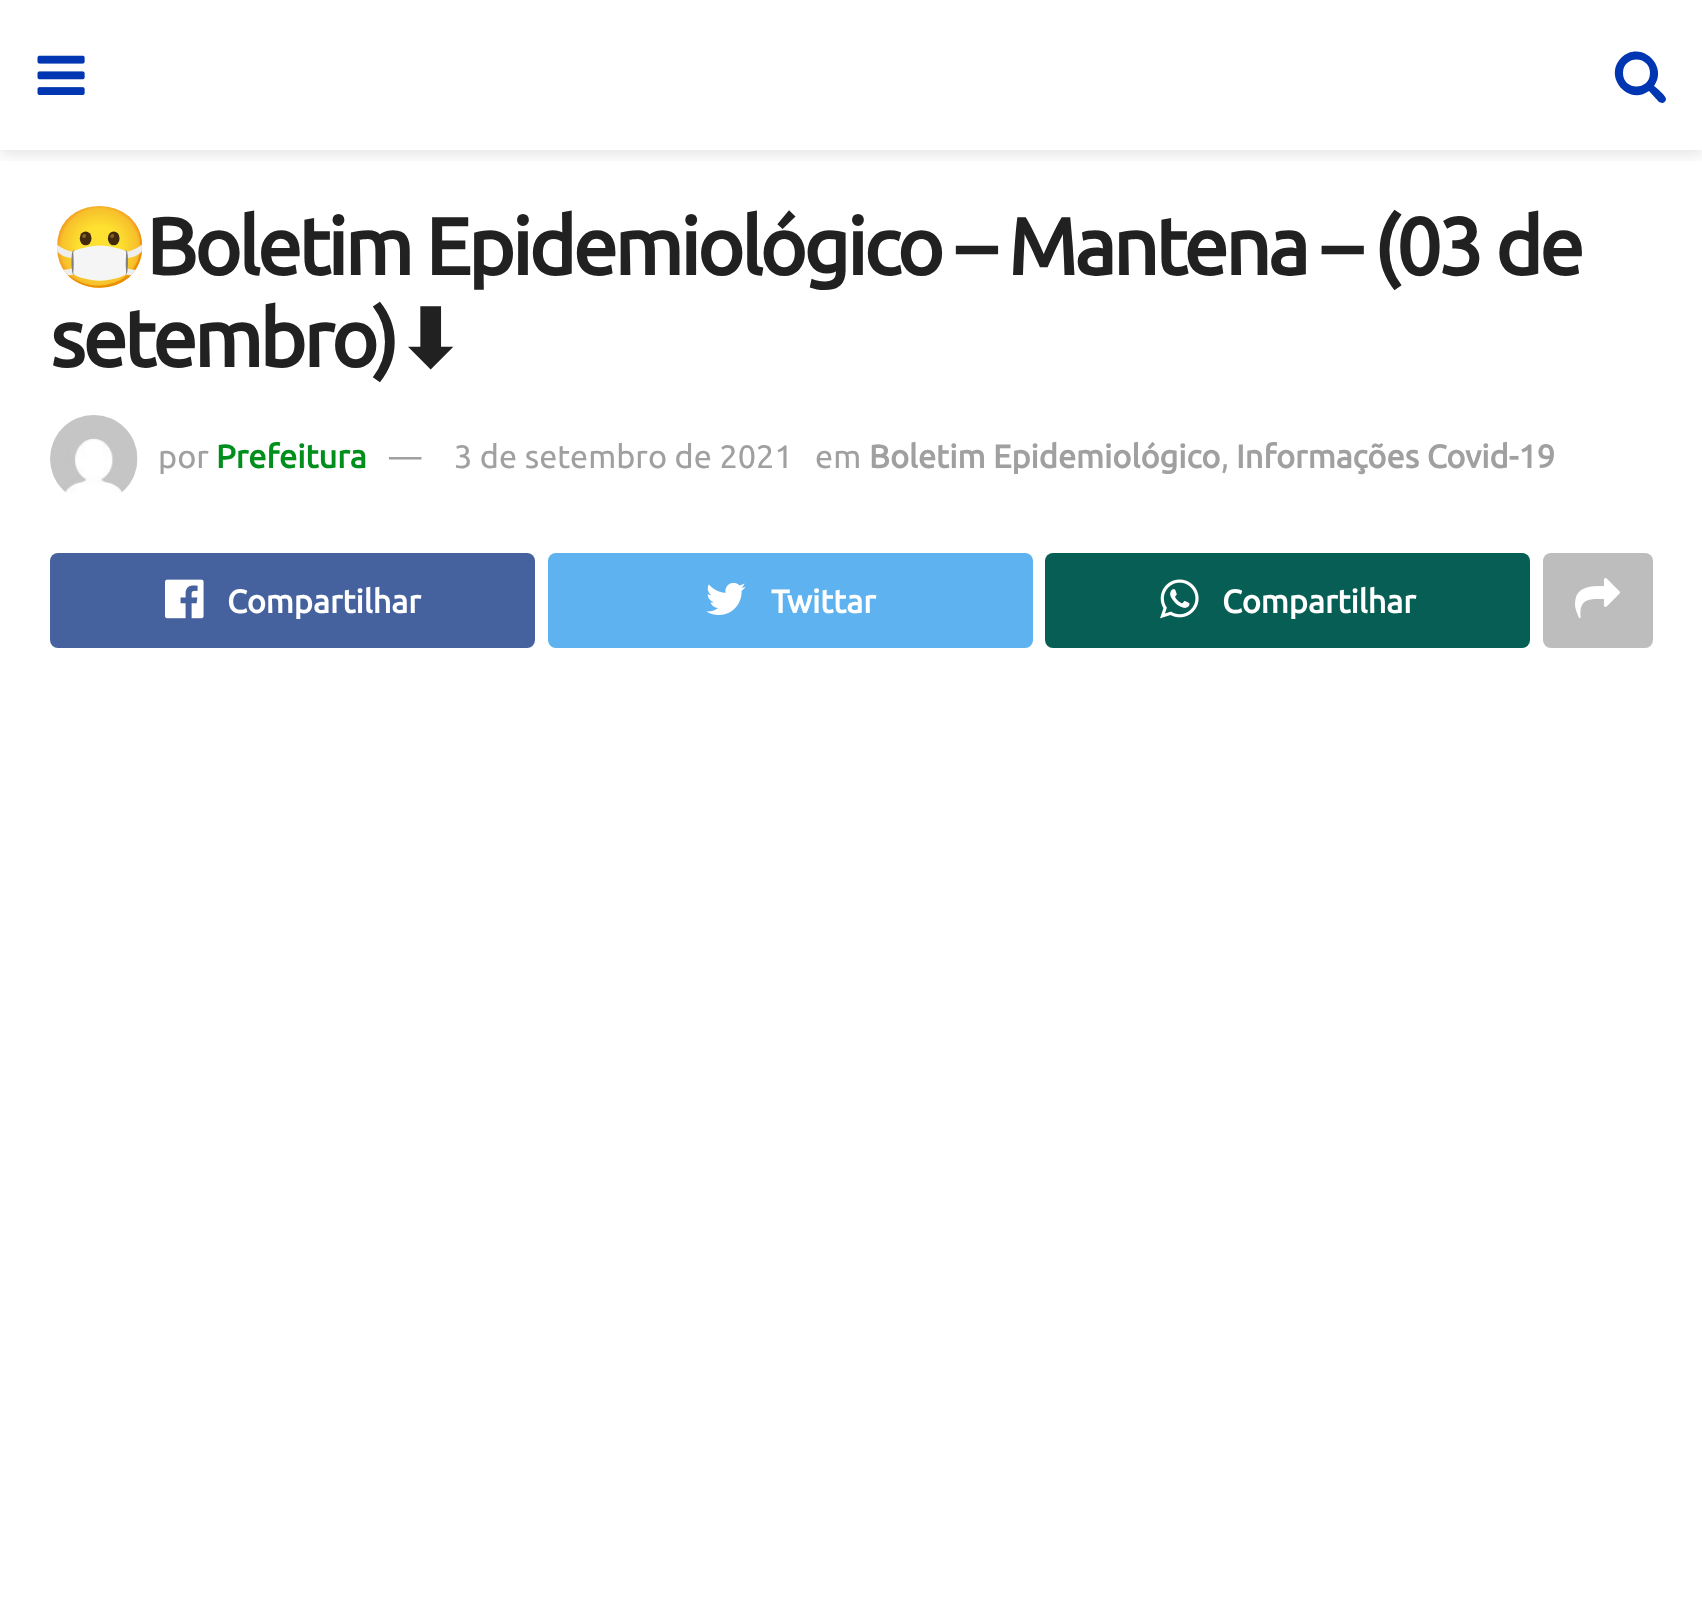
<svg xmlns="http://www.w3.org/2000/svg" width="1702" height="1613">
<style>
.a{font:bold 80px Noto Color Emoji;letter-spacing:-3.2px;fill:#212121}
.b{font:bold 80px Ubuntu;letter-spacing:-3.2px;fill:#212121}
.c{font:bold 80px DejaVu Sans;letter-spacing:-3.2px;fill:#212121}
.d{font:32.5px Ubuntu;fill:#a0a0a0}
.e{font:bold 32.5px Ubuntu;fill:#008f1d}
.f{font:bold 32.5px Ubuntu;fill:#a0a0a0}
.g{font:bold 32.5px Ubuntu;fill:#fff}
</style>
<defs>
<clipPath id="clip1"><path d="M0 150h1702v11H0z"/></clipPath>
</defs>
<rect width="100%" height="100%" fill="#fff"/>
<g clip-path="url(#clip1)">
<path fill="#0000001a" filter="blur(7.5px)" d="M0 5h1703v150H0z"/>
</g>
<image href="1.png" x="37" y="55" width="48" height="40"/>
<path fill="#0036b1" d="M1650 73c0 18-27 18-27 0c0-18 27-18 27 0zm16 26c0-3-9-11-12-13c15-21-14-47-33-28c-18 19 7 48 28 33l10 11c1 0 2 1 3 1c2 0 4-2 4-4z"/>
<image href="2.png" x="50" y="415" width="88" height="78"/>
<rect fill="#45629f" x="50" y="553" width="485" height="95" rx="8"/>
<image href="3.png" x="165" y="579" width="39" height="40"/>
<rect fill="#5eb2ef" x="548" y="553" width="485" height="95" rx="8"/>
<image href="4.png" x="706" y="582" width="40" height="33"/>
<rect fill="#075e54" x="1045" y="553" width="485" height="95" rx="8"/>
<image href="5.png" x="1160" y="579" width="39" height="40"/>
<rect fill="#bdbdbd" x="1543" y="553" width="110" height="95" rx="8"/>
<image href="6.png" x="1575" y="578" width="45" height="41"/>
<text class="a" x="50" y="275">😷</text>
<text class="b" x="146" y="275">Boletim Epidemiológico – Mantena – (03 de</text>
<text class="b" x="50" y="367">setembro)</text>
<text class="c" x="396" y="367">⬇</text>
<text class="d" x="158" y="468">por</text>
<text class="e" x="216" y="468">Prefeitura</text>
<text class="d" x="389" y="468">—</text>
<text class="d" x="454" y="468">3 de setembro de 2021</text>
<text class="d" x="815" y="468">em</text>
<text class="f" x="869" y="468">Boletim Epidemiológico</text>
<text class="d" x="1221" y="468">,</text>
<text class="f" x="1236" y="468">Informações Covid-19</text>
<text class="g" x="227" y="613">Compartilhar</text>
<text class="g" x="771" y="613">Twittar</text>
<text class="g" x="1222" y="613">Compartilhar</text>
</svg>
